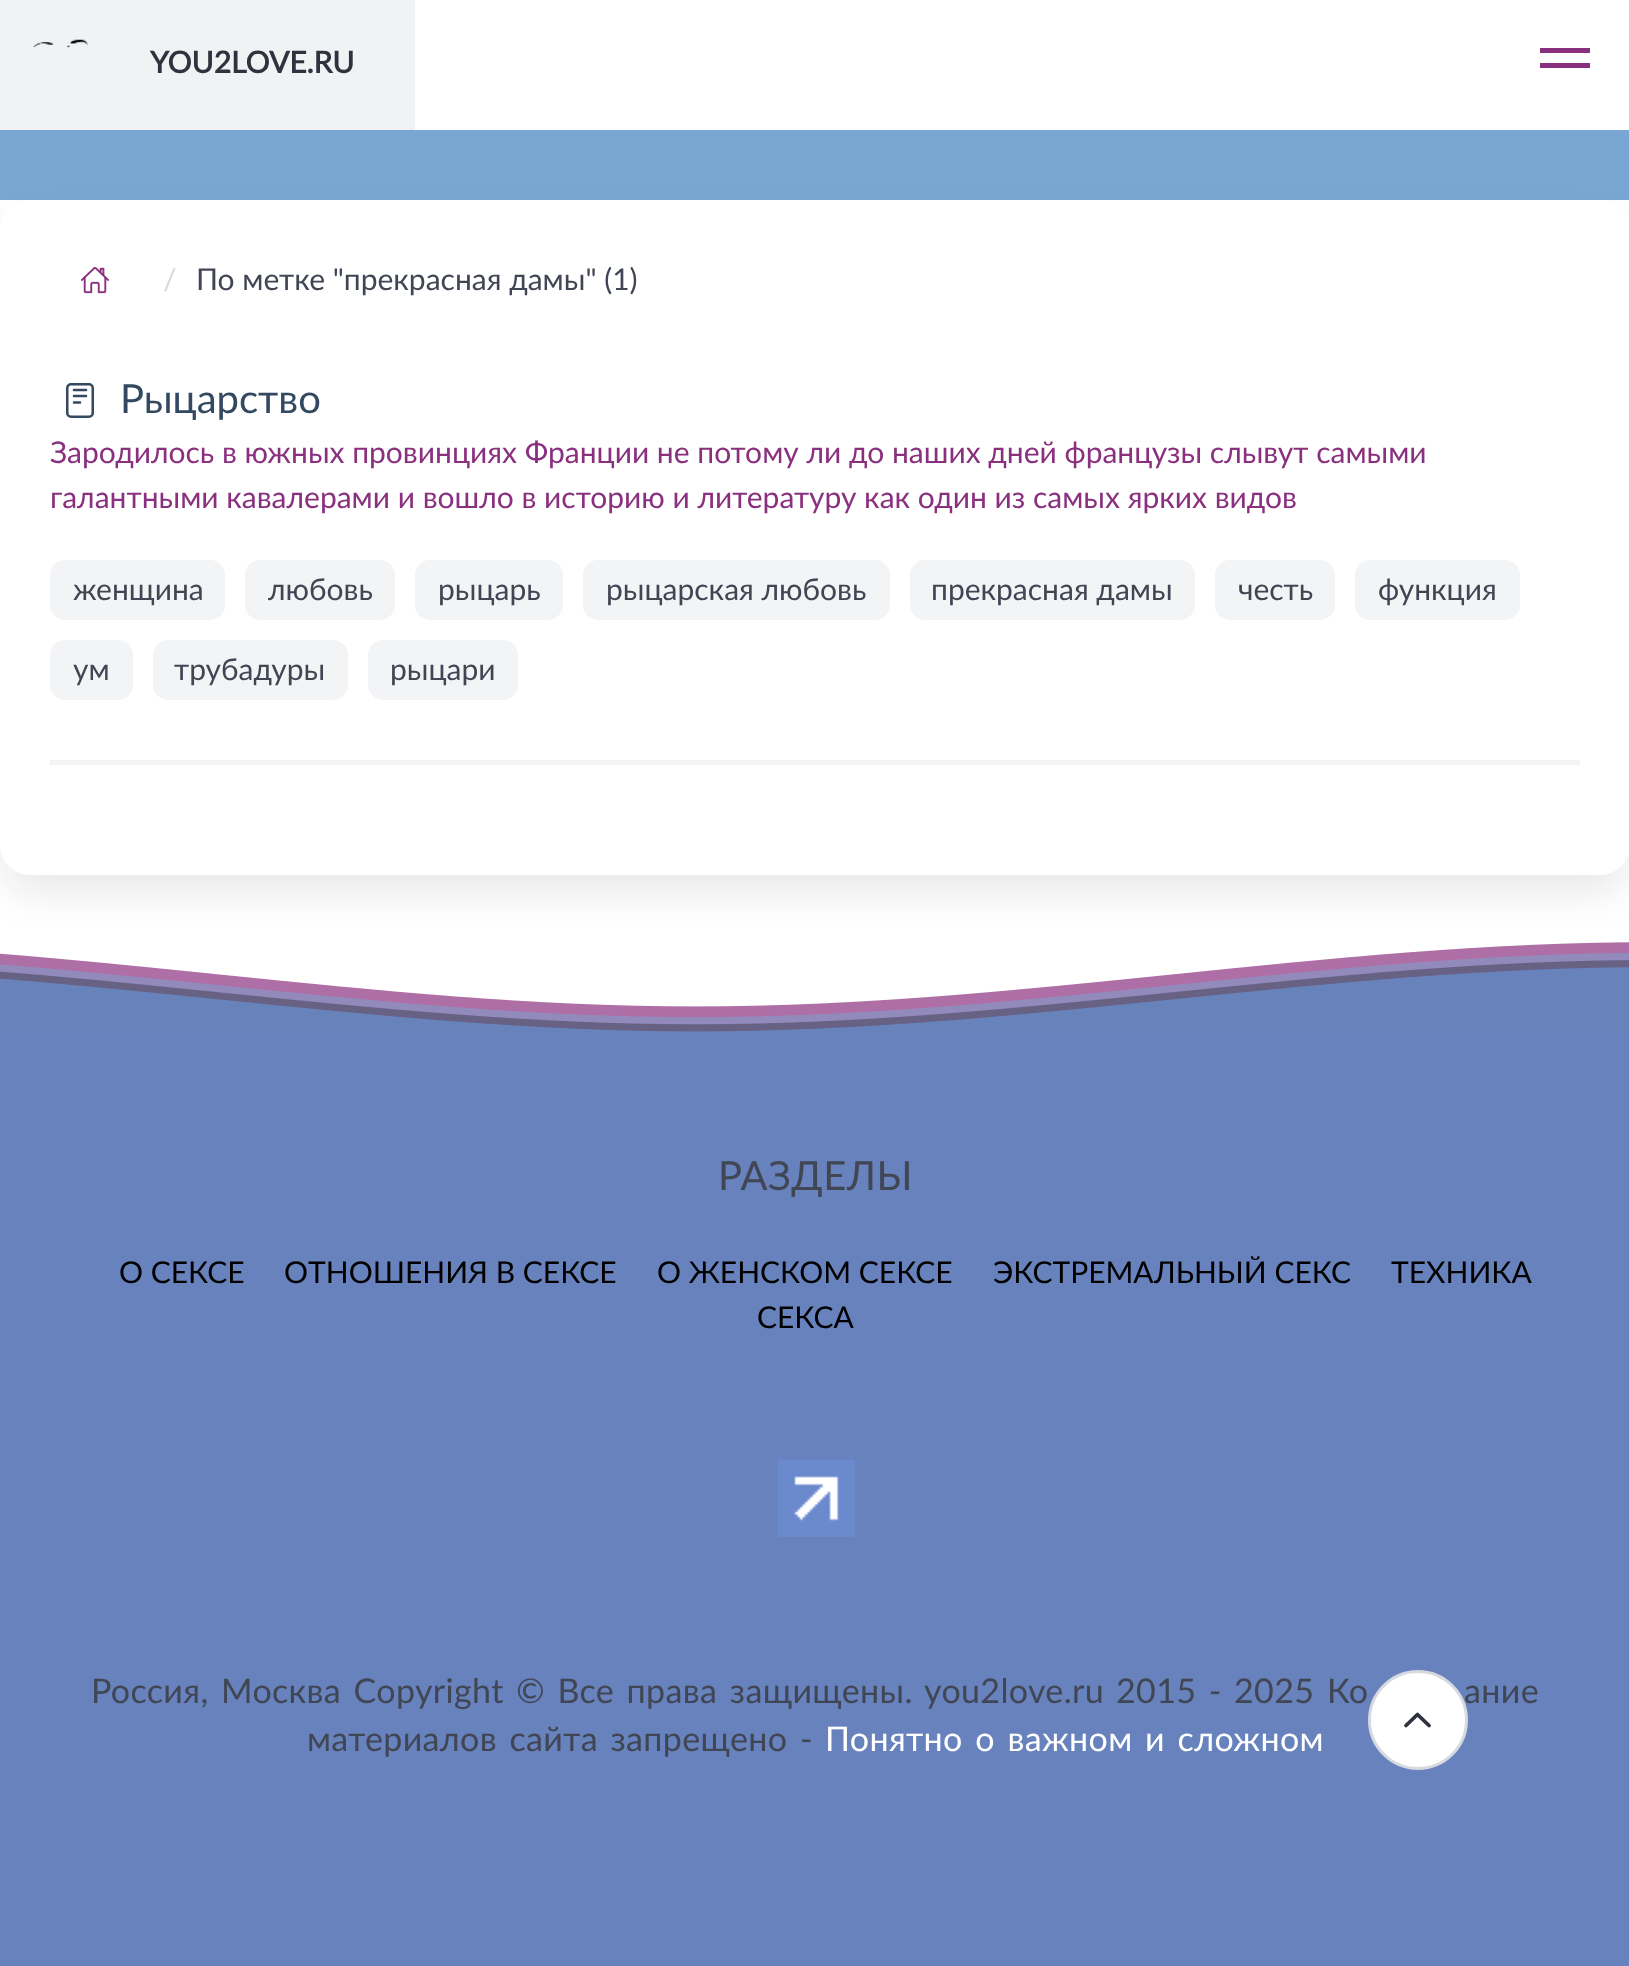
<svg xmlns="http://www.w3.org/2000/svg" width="1629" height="1966">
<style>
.a{font:bold 30px Lato;fill:#2e333d}
.b{font:30px Lato;fill:#d6d9e0}
.c{font:30px Lato;fill:#404654}
.d{font:40px Lato;fill:#334961}
.e{font:30px Lato;fill:#8a307f}
.f{font:40px Lato;letter-spacing:0.5px;fill:#404654}
.g{font:30px Lato;fill:#000}
.h{font:34px Lato;letter-spacing:0.35px;fill:#404654}
.i{font:34px Lato;letter-spacing:0.35px;fill:#fff}
</style>
<rect width="100%" height="100%" fill="#fff"/>
<path fill="#f0f2f4" d="M0 0h415v130H0z"/>
<image href="1.png" x="33" y="39" width="55" height="9"/>
<path fill="#88307e" d="M1540 48h50v5H1540z"/>
<path fill="#88307e" d="M1540 63h50v5H1540z"/>
<path fill="#79a6d2" d="M0 130h1629v70H0z"/>
<rect fill="#090a0c1a" filter="blur(20px)" x="5" y="225" width="1620" height="665" rx="25"/>
<rect fill="#fff" y="200" width="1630" height="675" rx="30"/>
<image href="2.png" x="81" y="266" width="28" height="28"/>
<rect fill="none" stroke="#334961" stroke-width="2.5" x="67.25" y="384.25" width="25.5" height="32.5" rx="3.75"/>
<path fill="none" stroke="#334961" stroke-width="2.5" stroke-linecap="round" stroke-linejoin="round" d="M74 390h12m-12 6h12m-12 6.5h6"/>
<rect fill="#f3f4f6" x="50" y="560" width="175" height="60" rx="15"/>
<rect fill="#f3f4f6" x="245" y="560" width="150" height="60" rx="15"/>
<rect fill="#f3f4f6" x="415" y="560" width="148" height="60" rx="15"/>
<rect fill="#f3f4f6" x="583" y="560" width="307" height="60" rx="15"/>
<rect fill="#f3f4f6" x="910" y="560" width="285" height="60" rx="15"/>
<rect fill="#f3f4f6" x="1215" y="560" width="120" height="60" rx="15"/>
<rect fill="#f3f4f6" x="1355" y="560" width="165" height="60" rx="15"/>
<rect fill="#f3f4f6" x="50" y="640" width="83" height="60" rx="15"/>
<rect fill="#f3f4f6" x="153" y="640" width="195" height="60" rx="15"/>
<rect fill="#f3f4f6" x="368" y="640" width="150" height="60" rx="15"/>
<path fill="#f3f4f6" d="M50 760h1530v5H50z"/>
<image href="3.png" x="0" y="942" width="1629" height="93"/>
<path fill="#6782bc" d="M0 1035h1629v931H0z"/>
<image href="4.png" x="777" y="1459" width="78" height="78"/>
<text class="a" x="150" y="73">YOU2LOVE.RU</text>
<text class="b" x="163" y="290">/</text>
<text class="c" x="196" y="290">По метке "прекрасная дамы" (1)</text>
<text class="d" x="120" y="413">Рыцарство</text>
<text class="e" x="50" y="463">Зародилось в южных провинциях Франции не потому ли до наших дней французы слывут самыми</text>
<text class="e" x="50" y="508">галантными кавалерами и вошло в историю и литературу как один из самых ярких видов</text>
<text class="c" x="73" y="600">женщина</text>
<text class="c" x="268" y="600">любовь</text>
<text class="c" x="438" y="600">рыцарь</text>
<text class="c" x="606" y="600">рыцарская любовь</text>
<text class="c" x="931" y="600">прекрасная дамы</text>
<text class="c" x="1238" y="600">честь</text>
<text class="c" x="1378" y="600">функция</text>
<text class="c" x="73" y="680">ум</text>
<text class="c" x="174" y="680">трубадуры</text>
<text class="c" x="390" y="680">рыцари</text>
<text class="f" x="718" y="1190">РАЗДЕЛЫ</text>
<text class="g" x="119" y="1283">О СЕКСЕ</text>
<text class="g" x="284" y="1283">ОТНОШЕНИЯ В СЕКСЕ</text>
<text class="g" x="657" y="1283">О ЖЕНСКОМ СЕКСЕ</text>
<text class="g" x="993" y="1283">ЭКСТРЕМАЛЬНЫЙ СЕКС</text>
<text class="g" x="1391" y="1283">ТЕХНИКА</text>
<text class="g" x="757" y="1328">СЕКСА</text>
<text class="h" x="91" y="1703" word-spacing="3.5">Россия, Москва Copyright © Все права защищены.</text>
<text class="h" x="924" y="1703">you2love.ru</text>
<text class="h" x="1116" y="1703" word-spacing="3.5">2015 -</text>
<text class="h" x="1234" y="1703">2025</text>
<text class="h" x="1327" y="1703">Ко</text>
<text class="h" x="1464" y="1703">ание</text>
<text class="h" x="307" y="1751" word-spacing="3.5">материалов сайта запрещено -</text>
<text class="i" x="825" y="1751" word-spacing="3.5">Понятно о важном и сложном</text>
<circle fill="#fff" stroke="#d6d9e0" stroke-width="3" cx="1418" cy="1720" r="48.5"/>
<path fill="none" stroke="#2e333d" stroke-width="3.8" stroke-linecap="round" stroke-linejoin="round" d="M1406 1725.5l11.5-11l11.5 11"/>
</svg>
